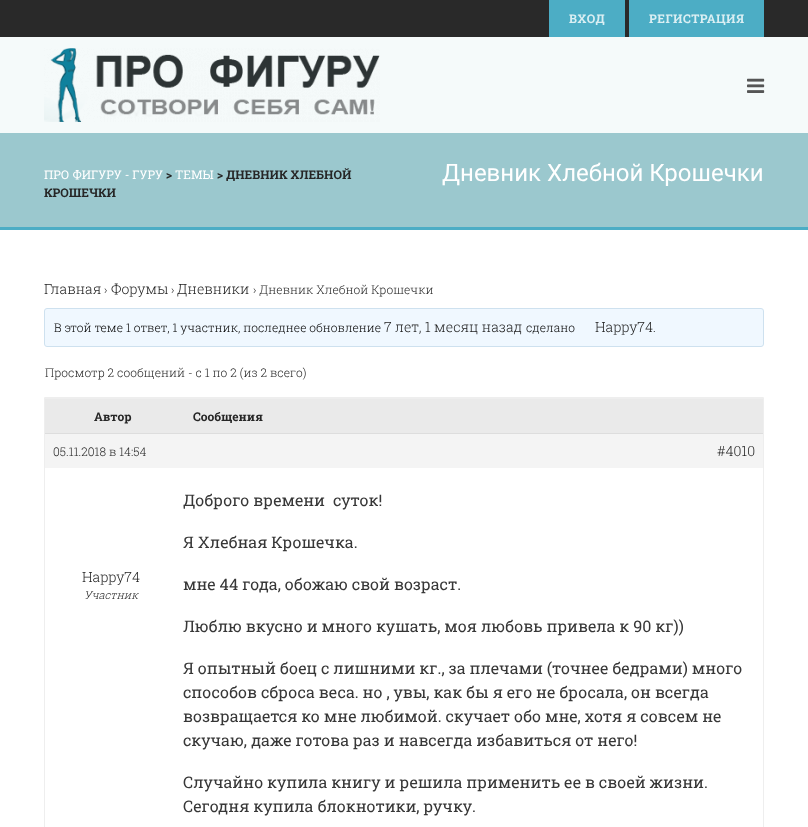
<svg xmlns="http://www.w3.org/2000/svg" width="808" height="827">
<style>
.a{font:bold 12px Roboto Slab;letter-spacing:0.5px;fill:#dbeff3}
.b{font:12px Roboto Slab;fill:#fff}
.c{font:bold 12px Roboto Slab;fill:#262626}
.d{font:24px Roboto;fill:#fff}
.e{font:300 14px Roboto Slab;fill:#1e1e1e}
.f{font:300 12px Roboto Slab;fill:#262626}
.g{font:300 12px Roboto Slab;fill:#000}
.h{font:italic 300 11px Roboto Slab;fill:#262626}
.i{font:16px Roboto Slab;fill:#373737}
</style>
<rect width="100%" height="100%" fill="#fff"/>
<path fill="#292929" d="M0 0h808v37H0z"/>
<path fill="#4cadc5" d="M549 0h76v37H549z"/>
<path fill="#4cadc5" d="M629 0h135v37H629z"/>
<path fill="#f5fafa" d="M0 37h808v96H0z"/>
<image href="1.png" x="44" y="48" width="336" height="74"/>
<image href="2.png" x="747" y="78" width="18" height="15"/>
<path fill="#9bc8ce" d="M0 133h808v94H0z"/>
<path fill="#4cadc5" d="M0 227h808v3H0z"/>
<rect fill="#f0f8ff" stroke="#cee1ef" x="44.5" y="308.5" width="719" height="38" rx="2.5"/>
<path fill="none" stroke="#eee" d="M44.5 397.5h719v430H44.5z"/>
<path fill="#eaeaea" d="M45 399h718v34H45z"/>
<path fill="#eee" d="M45 398h718v1H45z"/>
<path fill="#f4f4f4" d="M45 434h718v34H45z"/>
<path fill="#ddd" d="M45 433h718v1H45z"/>
<text class="a" x="569" y="23">ВХОД</text>
<text class="a" x="649" y="23">РЕГИСТРАЦИЯ</text>
<text class="b" x="44" y="179">ПРО ФИГУРУ - ГУРУ</text>
<text class="c" x="166" y="179">&gt;</text>
<text class="b" x="175" y="179">ТЕМЫ</text>
<text class="c" x="217" y="179">&gt; ДНЕВНИК ХЛЕБНОЙ</text>
<text class="c" x="44" y="197">КРОШЕЧКИ</text>
<text class="d" x="442" y="181">Дневник Хлебной Крошечки</text>
<text class="e" x="44" y="294">Главная</text>
<text class="f" x="104" y="294">›</text>
<text class="e" x="111" y="294">Форумы</text>
<text class="f" x="171" y="294">›</text>
<text class="e" x="177" y="294">Дневники</text>
<text class="f" x="253" y="294">› Дневник Хлебной Крошечки</text>
<text class="g" x="54" y="332">В этой теме 1 ответ, 1 участник, последнее обновление</text>
<text class="e" x="384" y="332">7 лет, 1 месяц назад</text>
<text class="g" x="526" y="332">сделано</text>
<text class="e" x="595" y="332">Happy74</text>
<text class="g" x="653" y="332">.</text>
<text class="f" x="45" y="377">Просмотр 2 сообщений - с 1 по 2 (из 2 всего)</text>
<text class="c" x="94" y="421">Автор</text>
<text class="c" x="193" y="421">Сообщения</text>
<text class="f" x="53" y="456">05.11.2018 в 14:54</text>
<text class="e" x="717" y="456">#4010</text>
<text class="e" x="82" y="582">Happy74</text>
<text class="h" x="84" y="599">Участник</text>
<text class="i" xml:space="preserve" x="183" y="506">Доброго времени  суток!</text>
<text class="i" x="183" y="548">Я Хлебная Крошечка.</text>
<text class="i" x="183" y="590">мне 44 года, обожаю свой возраст.</text>
<text class="i" x="183" y="632">Люблю вкусно и много кушать, моя любовь привела к 90 кг))</text>
<text class="i" x="183" y="674">Я опытный боец с лишними кг., за плечами (точнее бедрами) много</text>
<text class="i" x="183" y="698">способов сброса веса. но , увы, как бы я его не бросала, он всегда</text>
<text class="i" x="183" y="722">возвращается ко мне любимой. скучает обо мне, хотя я совсем не</text>
<text class="i" x="183" y="746">скучаю, даже готова раз и навсегда избавиться от него!</text>
<text class="i" x="183" y="788">Случайно купила книгу и решила применить ее в своей жизни.</text>
<text class="i" x="183" y="812">Сегодня купила блокнотики, ручку.</text>
</svg>
